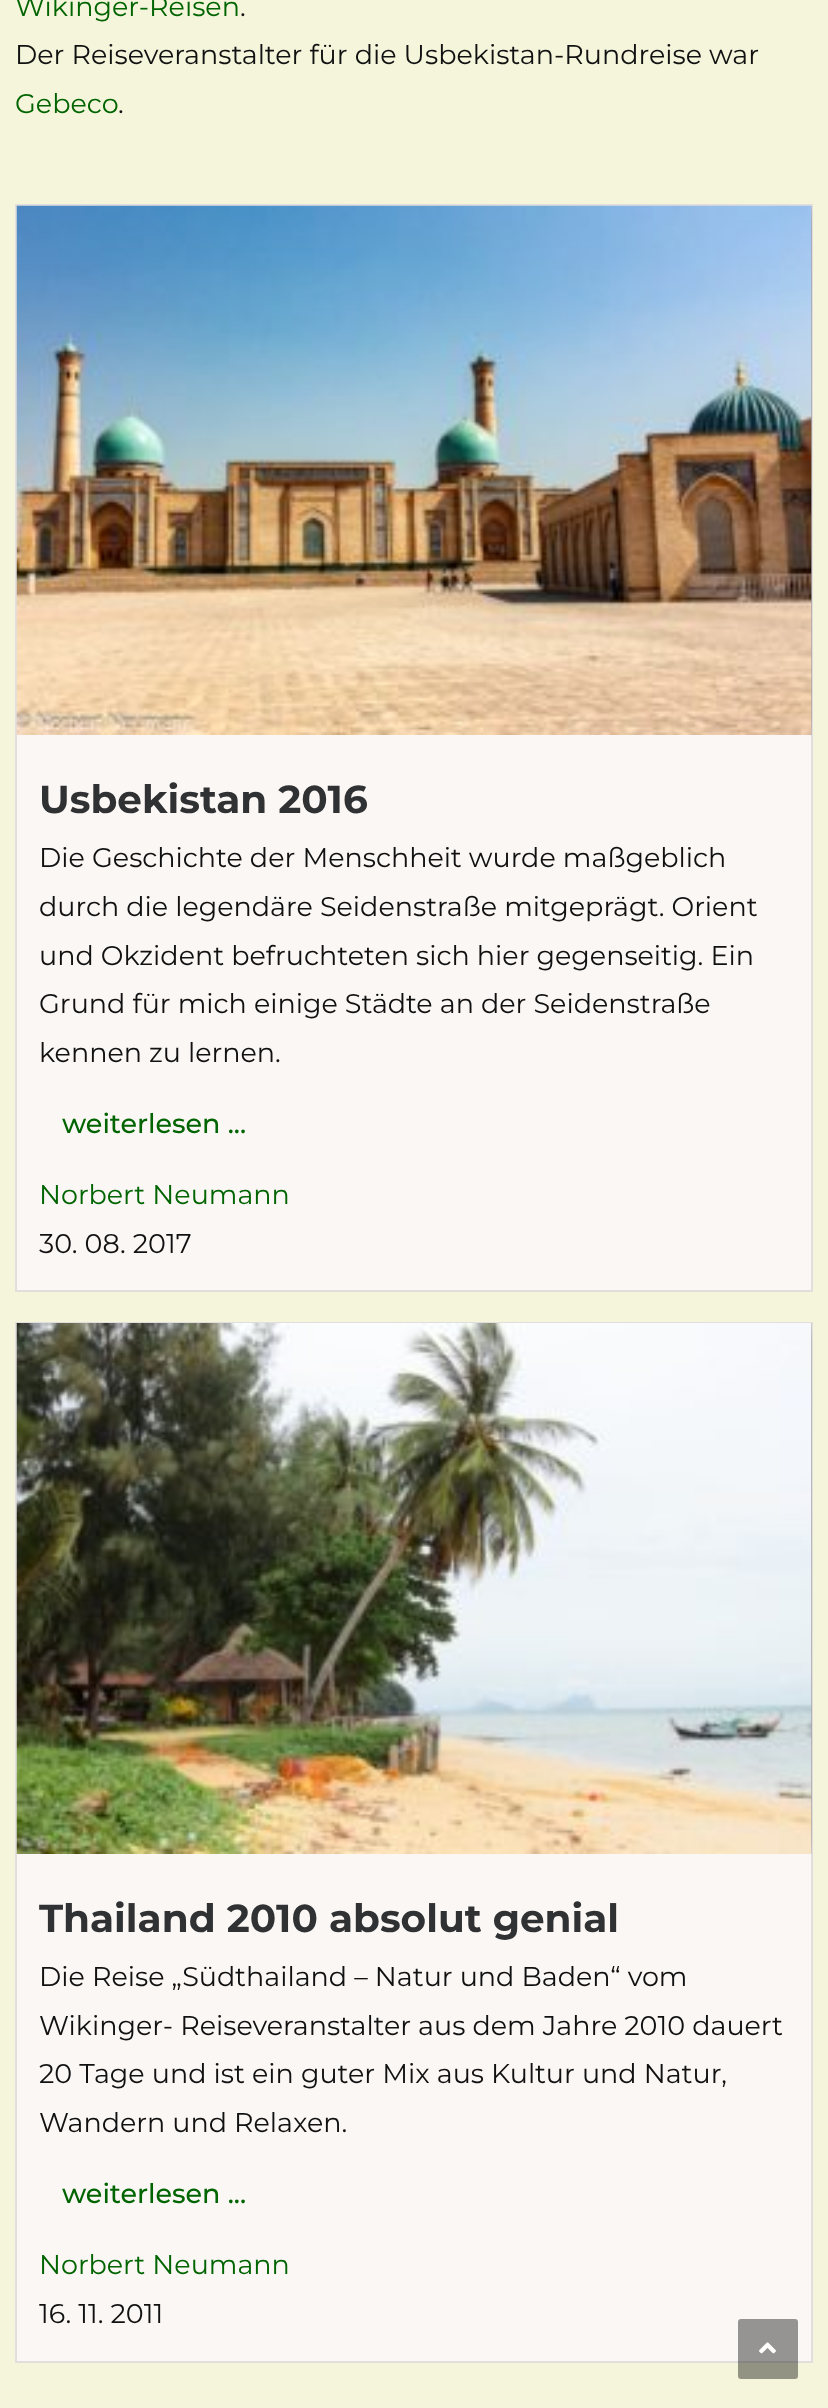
<svg xmlns="http://www.w3.org/2000/svg" width="828" height="2408">
<style>
.a{font:27px Montserrat;fill:#006400}
.b{font:27px Montserrat;fill:#111}
.c{font:bold 39px Montserrat;fill:#303133}
.d{font:500 27px Montserrat;fill:#006400}
</style>
<defs>
<clipPath id="clip1"><path d="M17 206h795v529H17z"/></clipPath>
<clipPath id="clip2"><path d="M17 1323h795v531H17z"/></clipPath>
</defs>
<rect width="100%" height="100%" fill="#f5f5dc"/>
<path fill="#fbf7f5" d="M17 735h794v555H17z"/>
<path fill="none" stroke="#e2dedd" stroke-width="2" d="M16 205h796v1086H16z"/>
<g clip-path="url(#clip1)">
<path fill="#00000080" filter="blur(12px)" d="M17 206h795v529H17z"/>
</g>
<image href="1.png" x="16" y="205" width="796" height="530"/>
<path fill="#fbf7f5" d="M17 1854h794v507H17z"/>
<path fill="none" stroke="#e2dedd" stroke-width="2" d="M16 1323h796v1039H16z"/>
<g clip-path="url(#clip2)">
<path fill="#00000080" filter="blur(12px)" d="M17 1323h795v531H17z"/>
</g>
<image href="2.png" x="16" y="1323" width="796" height="531"/>
<rect fill="#00000066" x="738" y="2319" width="60" height="60" rx="3"/>
<image href="3.png" x="759" y="2342" width="17" height="12"/>
<text class="a" x="15" y="16">Wikinger-Reisen</text>
<text class="b" x="240" y="16">.</text>
<text class="b" x="15" y="64">Der Reiseveranstalter für die Usbekistan-Rundreise war</text>
<text class="a" x="15" y="113">Gebeco</text>
<text class="b" x="118" y="113">.</text>
<text class="c" x="39" y="813">Usbekistan 2016</text>
<text class="b" x="39" y="867">Die Geschichte der Menschheit wurde maßgeblich</text>
<text class="b" x="39" y="916">durch die legendäre Seidenstraße mitgeprägt. Orient</text>
<text class="b" x="39" y="965">und Okzident befruchteten sich hier gegenseitig. Ein</text>
<text class="b" x="39" y="1013">Grund für mich einige Städte an der Seidenstraße</text>
<text class="b" x="39" y="1062">kennen zu lernen.</text>
<text class="d" x="62" y="1133">weiterlesen ...</text>
<text class="a" x="39" y="1204">Norbert Neumann</text>
<text class="b" x="39" y="1253">30. 08. 2017</text>
<text class="c" x="39" y="1932">Thailand 2010 absolut genial</text>
<text class="b" x="39" y="1986">Die Reise „Südthailand – Natur und Baden“ vom</text>
<text class="b" x="39" y="2035">Wikinger- Reiseveranstalter aus dem Jahre 2010 dauert</text>
<text class="b" x="39" y="2083">20 Tage und ist ein guter Mix aus Kultur und Natur,</text>
<text class="b" x="39" y="2132">Wandern und Relaxen.</text>
<text class="d" x="62" y="2203">weiterlesen ...</text>
<text class="a" x="39" y="2274">Norbert Neumann</text>
<text class="b" x="39" y="2323">16. 11. 2011</text>
</svg>
